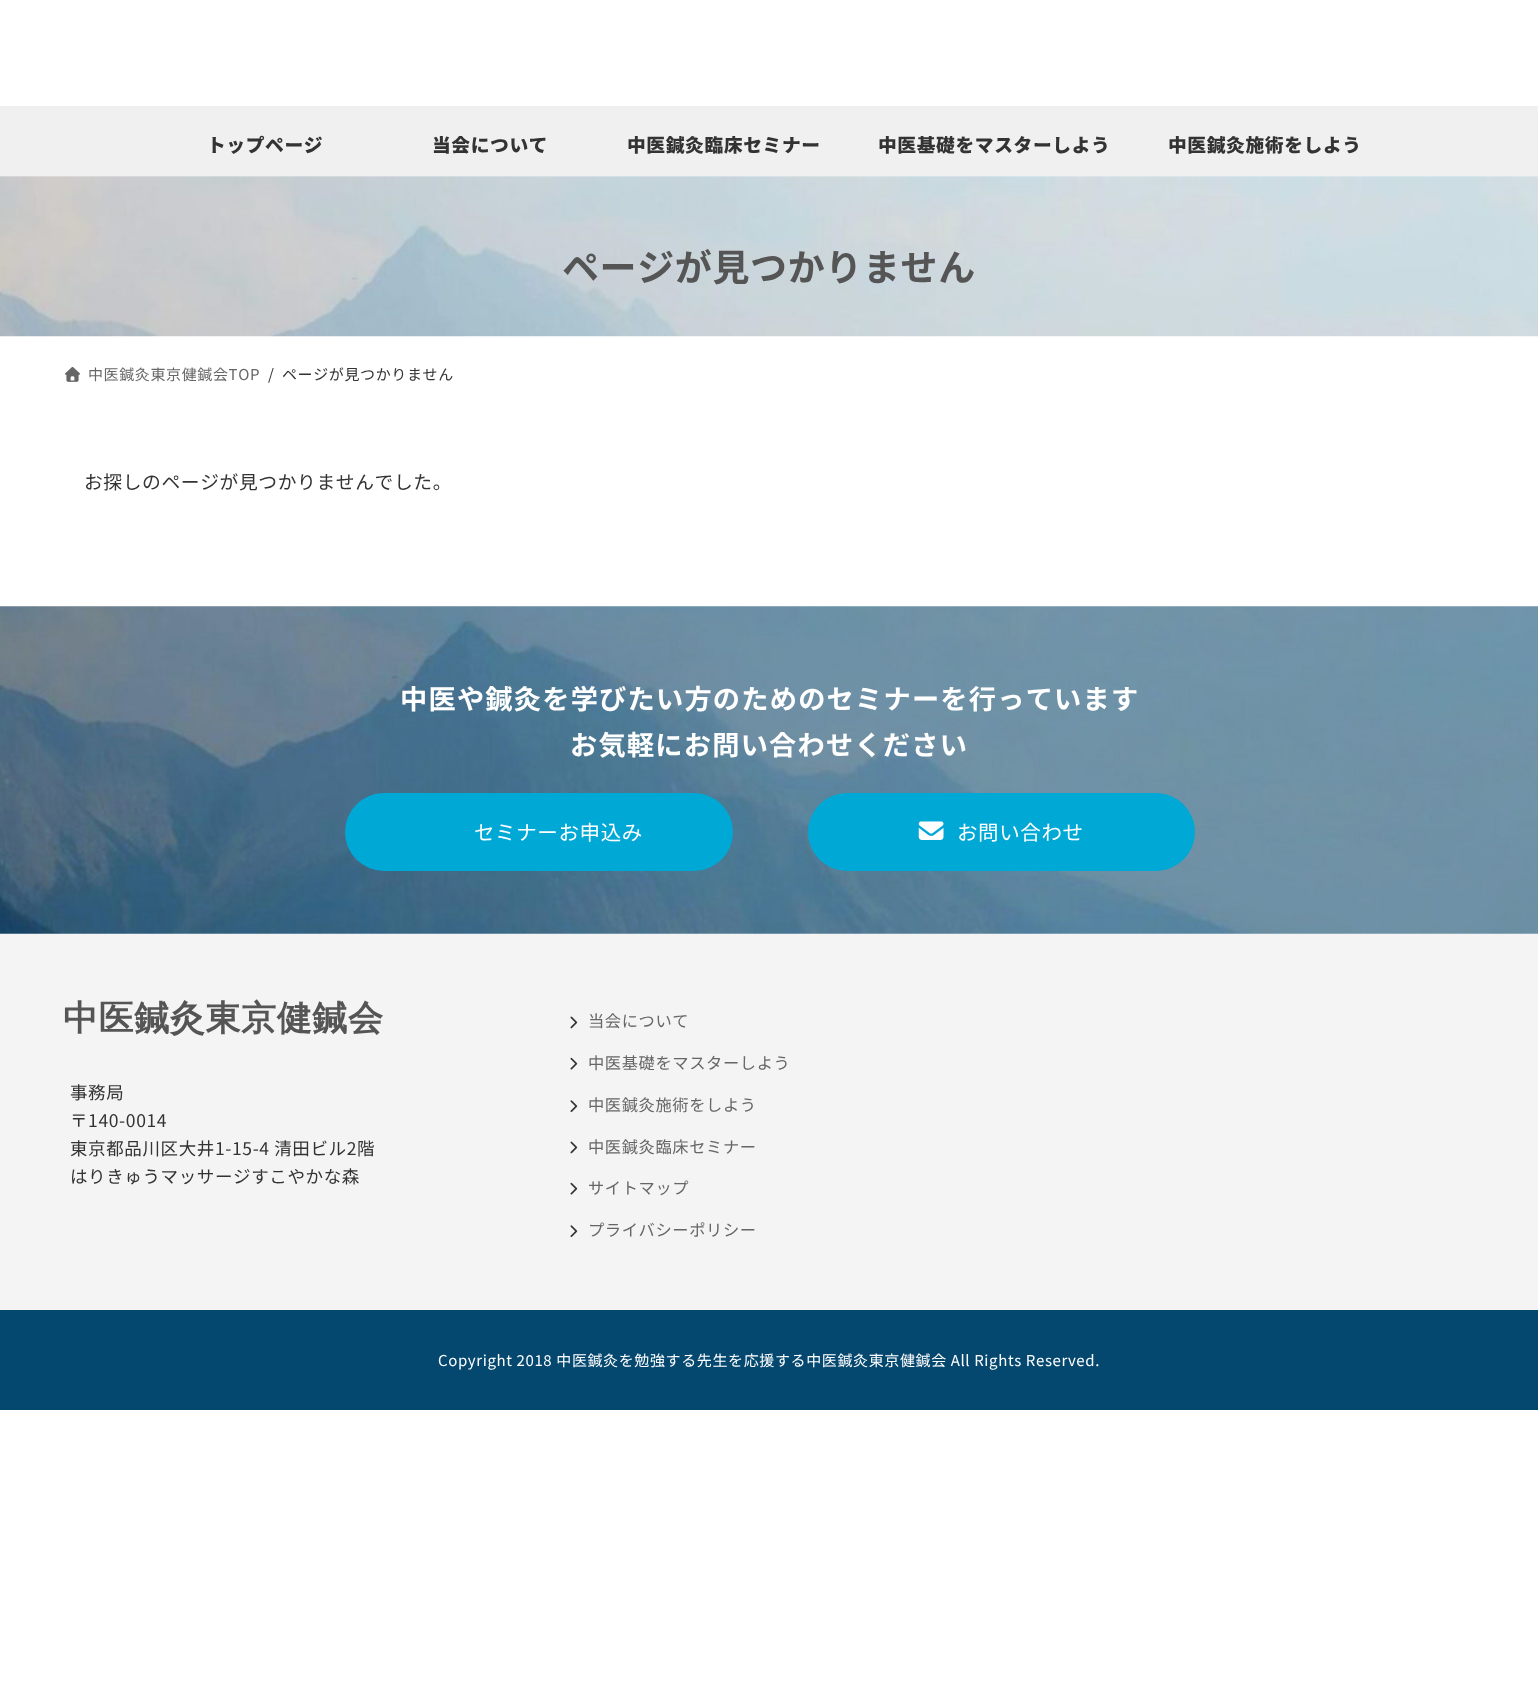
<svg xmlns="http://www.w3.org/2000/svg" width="1538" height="1704">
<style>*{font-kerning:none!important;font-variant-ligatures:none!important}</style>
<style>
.a{font:900 18.75px Noto Sans JP;letter-spacing:0.62px;fill:#333}
.b{font:bold 37px Noto Sans JP;letter-spacing:0.62px;fill:#555}
.c{font:15px Noto Sans JP;letter-spacing:0.62px;fill:#666}
.d{font:15px Noto Sans JP;letter-spacing:0.62px;fill:#333}
.e{font:18.75px Noto Sans JP;letter-spacing:0.62px;fill:#333}
.f{font:bold 27.2px Noto Sans JP;letter-spacing:1.25px;fill:#fff}
.g{font:20.5px Noto Sans JP;letter-spacing:0.62px;fill:#fff}
.h{font:bold 35px WenQuanYi Zen Hei;letter-spacing:0.62px;fill:#555}
.i{font:17.5px Noto Sans JP;letter-spacing:0.62px;fill:#333}
.j{font:16.25px Noto Sans JP;letter-spacing:0.62px;fill:#666}
.k{font:15px Noto Sans JP;letter-spacing:0.62px;fill:#fff}
</style>
<rect width="100%" height="100%" fill="#fff"/>
<path fill="#f0f0f0" d="M0 106h1538v70H0z"/>
<image href="1.png" x="0" y="176" width="1538" height="161"/>
<image href="2.png" x="65" y="366" width="15" height="16"/>
<image href="3.png" x="0" y="606" width="1538" height="328"/>
<rect fill="#00a8d6" x="345" y="793" width="388" height="78" rx="39"/>
<rect fill="#00a8d6" x="808" y="793" width="387" height="78" rx="39"/>
<image href="4.png" x="918" y="821" width="26" height="19"/>
<path fill="#f4f4f4" d="M0 934h1538v376H0z"/>
<image href="5.png" x="570" y="1016" width="8" height="13"/>
<image href="6.png" x="570" y="1057" width="8" height="13"/>
<image href="7.png" x="570" y="1100" width="8" height="12"/>
<image href="5.png" x="570" y="1141" width="8" height="13"/>
<image href="6.png" x="570" y="1182" width="8" height="13"/>
<image href="7.png" x="570" y="1225" width="8" height="12"/>
<path fill="#044870" d="M0 1310h1538v100H0z"/>
<text class="a" x="207" y="152">トップページ</text>
<text class="a" x="432" y="152">当会について</text>
<text class="a" x="627" y="152">中医鍼灸臨床セミナー</text>
<text class="a" x="878" y="152">中医基礎をマスターしよう</text>
<text class="a" x="1168" y="152">中医鍼灸施術をしよう</text>
<text class="b" x="562" y="281">ページが見つかりません</text>
<text class="c" x="88" y="380">中医鍼灸東京健鍼会TOP</text>
<text class="d" x="268" y="380">/</text>
<text class="d" x="282" y="380">ページが見つかりません</text>
<text class="e" x="84" y="489">お探しのページが見つかりませんでした。</text>
<text class="f" x="400" y="709">中医や鍼灸を学びたい方のためのセミナーを行っています</text>
<text class="f" x="570" y="755">お気軽にお問い合わせください</text>
<text class="g" x="474" y="840">セミナーお申込み</text>
<text class="g" x="957" y="840">お問い合わせ</text>
<text class="h" x="63" y="1030">中医鍼灸東京健鍼会</text>
<text class="i" x="70" y="1099">事務局</text>
<text class="i" x="70" y="1127">〒140-0014</text>
<text class="i" x="70" y="1155">東京都品川区大井1-15-4 清田ビル2階</text>
<text class="i" x="70" y="1183">はりきゅうマッサージすこやかな森</text>
<text class="j" x="588" y="1027">当会について</text>
<text class="j" x="588" y="1069">中医基礎をマスターしよう</text>
<text class="j" x="588" y="1111">中医鍼灸施術をしよう</text>
<text class="j" x="588" y="1153">中医鍼灸臨床セミナー</text>
<text class="j" x="588" y="1194">サイトマップ</text>
<text class="j" x="588" y="1236">プライバシーポリシー</text>
<text class="k" x="438" y="1366">Copyright 2018 中医鍼灸を勉強する先生を応援する中医鍼灸東京健鍼会 All Rights Reserved.</text>
</svg>
